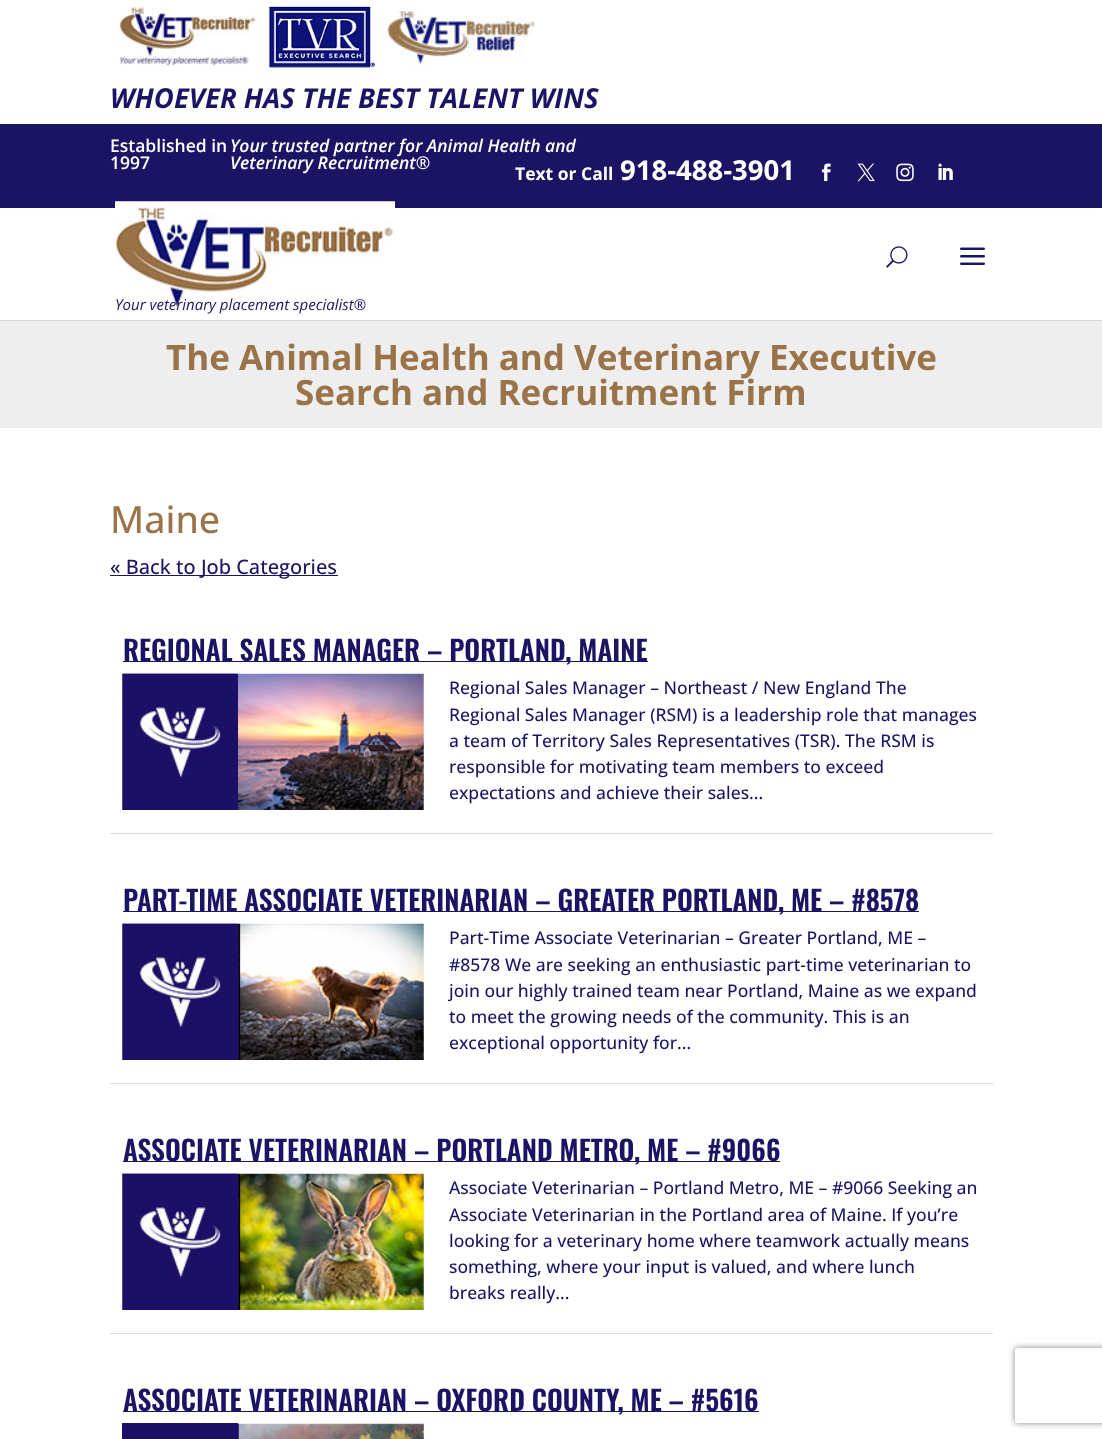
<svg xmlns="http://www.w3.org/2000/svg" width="1102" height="1439">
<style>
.a{font:italic bold 27.5px Open Sans;fill:#1b1464}
.b{font:600 17.5px Open Sans;fill:#fff}
.c{font:italic 600 17.5px Open Sans;fill:#fff}
.d{font:bold 17.5px Open Sans;fill:#fff}
.e{font:bold 27.5px Open Sans;fill:#fff}
.f{font:italic 15px Open Sans;fill:#1b1464}
.g{font:bold 35px Open Sans;fill:#9a7348}
.h{font:500 37.5px Open Sans;fill:#9a7348}
.i{font:500 20px Open Sans;fill:#1b1464}
.j{font:600 27.5px Oswald;fill:#1b1464}
.k{font:500 17.5px Open Sans;fill:#1b1464}
</style>
<defs>
<clipPath id="clip1"><path d="M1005 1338h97v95h-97zm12.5 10h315c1.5 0 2.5 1 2.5 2.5v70c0 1.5-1 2.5-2.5 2.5h-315c-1.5 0-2.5-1-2.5-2.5v-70c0-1.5 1-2.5 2.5-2.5z" clip-rule="evenodd"/></clipPath>
</defs>
<rect width="100%" height="100%" fill="#fff"/>
<image href="1.png" x="119" y="6" width="141" height="60"/>
<image href="2.png" x="268" y="6" width="107" height="62"/>
<image href="3.png" x="380" y="9" width="156" height="59"/>
<path fill="#1b1464" d="M0 124h1102v84H0z"/>
<image href="4.png" x="821" y="163" width="10" height="19"/>
<image href="5.png" x="857" y="163" width="18" height="19"/>
<image href="6.png" x="896" y="163" width="18" height="19"/>
<image href="7.png" x="938" y="163" width="15" height="17"/>
<path fill="#d6d6d6" d="M0 320v1h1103v-112h-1v111z"/>
<image href="8.png" x="886" y="246" width="22" height="22"/>
<image href="9.png" x="960" y="247" width="25" height="18"/>
<image href="10.png" x="115" y="201" width="280" height="108"/>
<path fill="#eee" d="M0 321h1102v107H0z"/>
<path fill="#1b1464" d="M110 575h228v1H110z"/>
<path fill="#ddd" d="M110 833h883v1H110z"/>
<path fill="#1b1464" d="M123 661h525v1H123z"/>
<image href="11.png" x="122" y="673" width="302" height="137"/>
<path fill="#1b1464" d="M237 674h1v136H237z"/>
<image href="12.png" x="122" y="673" width="116" height="137"/>
<path fill="#ddd" d="M110 1083h883v1H110z"/>
<path fill="#1b1464" d="M123 911h796v1H123z"/>
<image href="13.png" x="122" y="923" width="302" height="137"/>
<path fill="#1b1464" d="M237 924h1v136H237z"/>
<image href="14.png" x="122" y="923" width="116" height="137"/>
<path fill="#ddd" d="M110 1333h883v1H110z"/>
<path fill="#1b1464" d="M123 1161h657v1H123z"/>
<image href="15.png" x="122" y="1173" width="302" height="137"/>
<path fill="#1b1464" d="M237 1174h1v136H237z"/>
<image href="16.png" x="122" y="1173" width="116" height="137"/>
<path fill="#1b1464" d="M123 1411h636v1H123z"/>
<path fill="#1c0f67" d="M122 1423h116v16H122z"/>
<image href="17.png" x="238" y="1423" width="186" height="16"/>
<g clip-path="url(#clip1)">
<rect fill="#808080" filter="blur(3px)" x="1015" y="1348" width="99" height="75" rx="2.5"/>
</g>
<text class="a" x="110" y="108">WHOEVER HAS THE BEST TALENT WINS</text>
<text class="b" x="110" y="152">Established in</text>
<text class="b" x="110" y="169">1997</text>
<text class="c" x="230" y="152">Your trusted partner for Animal Health and</text>
<text class="c" x="230" y="169">Veterinary Recruitment®</text>
<text class="d" x="515" y="180">Text or Call</text>
<text class="e" x="620" y="180">918-488-3901</text>
<text class="f" x="115" y="310">Your veterinary placement specialist®</text>
<text class="g" x="166" y="370">The Animal Health and Veterinary Executive</text>
<text class="g" x="295" y="405">Search and Recruitment Firm</text>
<text class="h" x="110" y="533">Maine</text>
<text class="i" x="110" y="574">« Back to Job Categories</text>
<text class="j" x="123" y="661">REGIONAL SALES MANAGER – PORTLAND, MAINE</text>
<text class="k" x="449" y="694">Regional Sales Manager – Northeast / New England The</text>
<text class="k" x="449" y="721">Regional Sales Manager (RSM) is a leadership role that manages</text>
<text class="k" x="449" y="747">a team of Territory Sales Representatives (TSR). The RSM is</text>
<text class="k" x="449" y="773">responsible for motivating team members to exceed</text>
<text class="k" x="449" y="799">expectations and achieve their sales...</text>
<text class="j" x="123" y="911">PART-TIME ASSOCIATE VETERINARIAN – GREATER PORTLAND, ME – #8578</text>
<text class="k" x="449" y="944">Part-Time Associate Veterinarian – Greater Portland, ME –</text>
<text class="k" x="449" y="971">#8578 We are seeking an enthusiastic part-time veterinarian to</text>
<text class="k" x="449" y="997">join our highly trained team near Portland, Maine as we expand</text>
<text class="k" x="449" y="1023">to meet the growing needs of the community. This is an</text>
<text class="k" x="449" y="1049">exceptional opportunity for...</text>
<text class="j" x="123" y="1161">ASSOCIATE VETERINARIAN – PORTLAND METRO, ME – #9066</text>
<text class="k" x="449" y="1194">Associate Veterinarian – Portland Metro, ME – #9066 Seeking an</text>
<text class="k" x="449" y="1221">Associate Veterinarian in the Portland area of Maine. If you’re</text>
<text class="k" x="449" y="1247">looking for a veterinary home where teamwork actually means</text>
<text class="k" x="449" y="1273">something, where your input is valued, and where lunch</text>
<text class="k" x="449" y="1299">breaks really...</text>
<text class="j" x="123" y="1411">ASSOCIATE VETERINARIAN – OXFORD COUNTY, ME – #5616</text>
</svg>
